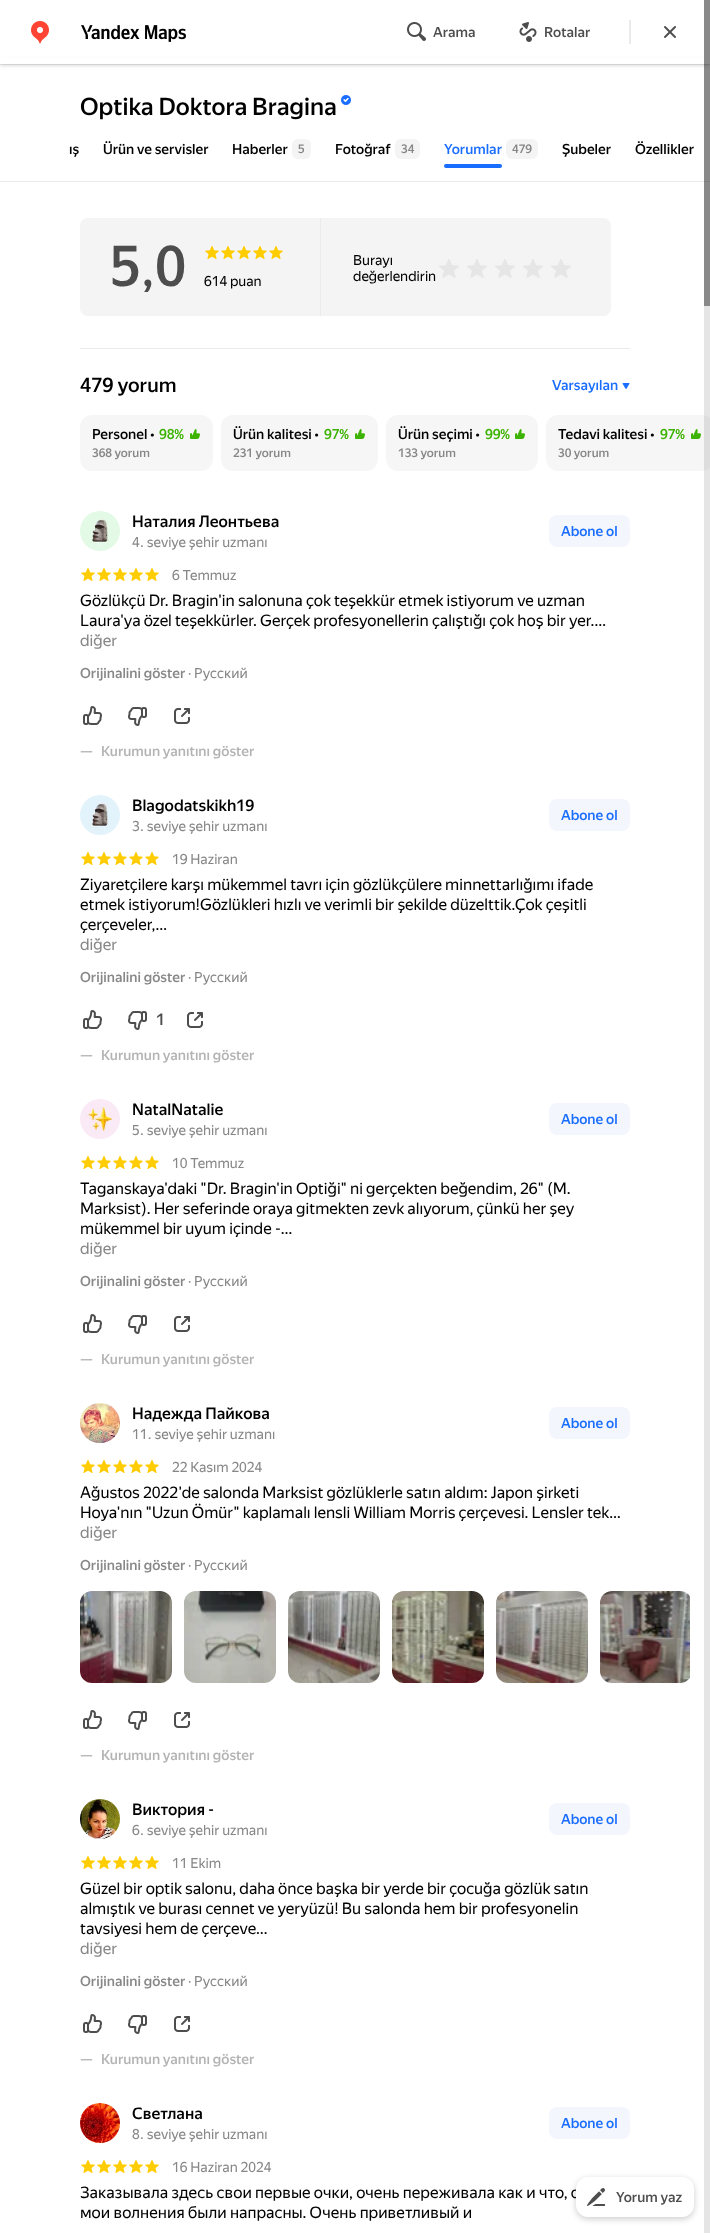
<svg xmlns="http://www.w3.org/2000/svg" width="710" height="2233">
<style>
.a{font:500 14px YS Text;fill:#4d4d4d}
.b{font:500 24px YS Text;fill:#000}
.c{font:500 14px YS Text;fill:#000}
.d{font:500 12px YS Text;fill:#878787}
.e{font:500 14px YS Text;fill:#196dff}
.f{font:500 56px YS Text;fill:#4d4d4d}
.g{font:56px YS Text;fill:#4d4d4d}
.h{font:14px YS Text;fill:#000}
.i{font:500 20px YS Text;fill:#000}
.j{font:500 14px YS Text;fill:#3bb300}
.k{font:500 16px YS Text;fill:#000}
.l{font:14px YS Text;fill:#878787}
.m{font:16px YS Text;fill:#000}
.n{font:16px YS Text;fill:#878787}
.o{font:500 14px YS Text;fill:#878787}
.p{font:500 14px YS Text;fill:#b3b3b3}
.q{font:500 16px YS Text;fill:#4d4d4d}
</style>
<rect width="100%" height="100%" fill="#fff"/>
<path fill="#ebebeb" d="M0 64h710v1H0z"/>
<path fill="#00000033" filter="blur(2px)" d="M0 61h710v4H0z"/>
<path fill="#fff" d="M0 58h710v6H0z"/>
<image href="1.png" x="31" y="21" width="18" height="23"/>
<image href="2.png" x="81" y="25" width="105" height="17"/>
<image href="3.png" x="407" y="22" width="19" height="19"/>
<image href="4.png" x="519" y="22" width="18" height="20"/>
<path fill="#ebebeb" d="M629 20h2v24H629z"/>
<image href="5.png" x="664" y="26" width="12" height="12"/>
<image href="6.png" x="341" y="95" width="10" height="10"/>
<rect fill="#f4f4f4" x="292" y="139" width="19" height="20" rx="6"/>
<rect fill="#f4f4f4" x="395" y="139" width="25" height="20" rx="6"/>
<rect fill="#f4f4f4" x="506" y="139" width="32" height="20" rx="6"/>
<rect fill="#196dff" x="444" y="164" width="58" height="4" rx="2"/>
<path fill="#ebebeb" d="M0 181h710v1H0z"/>
<path fill="#f4f4f4" d="M88 218h232v98h-232c-4.5 0-8-3.5-8-8v-82c0-4.5 3.5-8 8-8z"/>
<image href="7.png" x="205" y="246" width="14" height="13"/>
<image href="7.png" x="221" y="246" width="14" height="13"/>
<image href="7.png" x="237" y="246" width="14" height="13"/>
<image href="7.png" x="253" y="246" width="14" height="13"/>
<image href="7.png" x="269" y="246" width="14" height="13"/>
<path fill="#f4f4f4" d="M320 218h283c4.5 0 8 3.5 8 8v82c0 4.5-3.5 8-8 8h-283z"/>
<path fill="#ebebeb" d="M320 218h1v98H320z"/>
<image href="8.png" x="439" y="259" width="20" height="19"/>
<image href="8.png" x="467" y="259" width="20" height="19"/>
<image href="8.png" x="495" y="259" width="20" height="19"/>
<image href="8.png" x="523" y="259" width="20" height="19"/>
<image href="8.png" x="551" y="259" width="20" height="19"/>
<path fill="#ebebeb" d="M80 348h550v1H80z"/>
<image href="9.png" x="622" y="383" width="8" height="6"/>
<rect fill="#f6f6f6" x="80" y="415" width="133" height="56" rx="12"/>
<image href="10.png" x="190" y="429" width="10" height="10"/>
<rect fill="#f6f6f6" x="221" y="415" width="157" height="56" rx="12"/>
<image href="10.png" x="355" y="429" width="10" height="10"/>
<rect fill="#f6f6f6" x="386" y="415" width="152" height="56" rx="12"/>
<image href="10.png" x="515" y="429" width="10" height="10"/>
<rect fill="#f6f6f6" x="546" y="415" width="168" height="56" rx="12"/>
<image href="10.png" x="691" y="429" width="10" height="10"/>
<image href="11.png" x="80" y="511" width="40" height="40"/>
<rect fill="#f3f6fc" x="549" y="515" width="81" height="32" rx="8"/>
<image href="12.png" x="81" y="568" width="14" height="13"/>
<image href="12.png" x="97" y="568" width="14" height="13"/>
<image href="12.png" x="113" y="568" width="14" height="13"/>
<image href="12.png" x="129" y="568" width="14" height="13"/>
<image href="12.png" x="145" y="568" width="14" height="13"/>
<image href="13.png" x="83" y="706" width="19" height="19"/>
<image href="14.png" x="128" y="707" width="19" height="19"/>
<image href="15.png" x="174" y="708" width="16" height="16"/>
<image href="16.png" x="80" y="795" width="40" height="40"/>
<rect fill="#f3f6fc" x="549" y="799" width="81" height="32" rx="8"/>
<image href="12.png" x="81" y="852" width="14" height="13"/>
<image href="12.png" x="97" y="852" width="14" height="13"/>
<image href="12.png" x="113" y="852" width="14" height="13"/>
<image href="12.png" x="129" y="852" width="14" height="13"/>
<image href="12.png" x="145" y="852" width="14" height="13"/>
<image href="13.png" x="83" y="1010" width="19" height="19"/>
<image href="14.png" x="128" y="1011" width="19" height="19"/>
<image href="15.png" x="187" y="1012" width="16" height="16"/>
<image href="17.png" x="80" y="1099" width="40" height="40"/>
<rect fill="#f3f6fc" x="549" y="1103" width="81" height="32" rx="8"/>
<image href="12.png" x="81" y="1156" width="14" height="13"/>
<image href="12.png" x="97" y="1156" width="14" height="13"/>
<image href="12.png" x="113" y="1156" width="14" height="13"/>
<image href="12.png" x="129" y="1156" width="14" height="13"/>
<image href="12.png" x="145" y="1156" width="14" height="13"/>
<image href="13.png" x="83" y="1314" width="19" height="19"/>
<image href="14.png" x="128" y="1315" width="19" height="19"/>
<image href="15.png" x="174" y="1316" width="16" height="16"/>
<image href="18.png" x="80" y="1403" width="40" height="40"/>
<rect fill="#f3f6fc" x="549" y="1407" width="81" height="32" rx="8"/>
<image href="12.png" x="81" y="1460" width="14" height="13"/>
<image href="12.png" x="97" y="1460" width="14" height="13"/>
<image href="12.png" x="113" y="1460" width="14" height="13"/>
<image href="12.png" x="129" y="1460" width="14" height="13"/>
<image href="12.png" x="145" y="1460" width="14" height="13"/>
<image href="19.png" x="80" y="1591" width="92" height="92"/>
<image href="20.png" x="184" y="1591" width="92" height="92"/>
<image href="21.png" x="288" y="1591" width="92" height="92"/>
<image href="22.png" x="392" y="1591" width="92" height="92"/>
<image href="23.png" x="496" y="1591" width="92" height="92"/>
<image href="24.png" x="600" y="1591" width="90" height="92"/>
<image href="13.png" x="83" y="1710" width="19" height="19"/>
<image href="14.png" x="128" y="1711" width="19" height="19"/>
<image href="15.png" x="174" y="1712" width="16" height="16"/>
<image href="25.png" x="80" y="1799" width="40" height="40"/>
<rect fill="#f3f6fc" x="549" y="1803" width="81" height="32" rx="8"/>
<image href="12.png" x="81" y="1856" width="14" height="13"/>
<image href="12.png" x="97" y="1856" width="14" height="13"/>
<image href="12.png" x="113" y="1856" width="14" height="13"/>
<image href="12.png" x="129" y="1856" width="14" height="13"/>
<image href="12.png" x="145" y="1856" width="14" height="13"/>
<image href="13.png" x="83" y="2014" width="19" height="19"/>
<image href="14.png" x="128" y="2015" width="19" height="19"/>
<image href="15.png" x="174" y="2016" width="16" height="16"/>
<image href="26.png" x="80" y="2103" width="40" height="40"/>
<rect fill="#f3f6fc" x="549" y="2107" width="81" height="32" rx="8"/>
<image href="12.png" x="81" y="2160" width="14" height="13"/>
<image href="12.png" x="97" y="2160" width="14" height="13"/>
<image href="12.png" x="113" y="2160" width="14" height="13"/>
<image href="12.png" x="129" y="2160" width="14" height="13"/>
<image href="12.png" x="145" y="2160" width="14" height="13"/>
<rect fill="#00000033" filter="blur(3px)" x="576" y="2179" width="118" height="40" rx="12"/>
<path fill="#0000001a" d="M704 0h6v2233H704z"/>
<path fill="#00000066" d="M704 0h6v306H704z"/>
<text class="a" x="433" y="37">Arama</text>
<text class="a" x="544" y="37">Rotalar</text>
<text class="b" x="80" y="115">Optika Doktora Bragina</text>
<text class="c" x="69" y="154">ış</text>
<text class="c" x="103" y="154">Ürün ve servisler</text>
<text class="c" x="232" y="154">Haberler</text>
<text class="d" x="298" y="153">5</text>
<text class="c" x="335" y="154">Fotoğraf</text>
<text class="d" x="401" y="153">34</text>
<text class="e" x="444" y="154">Yorumlar</text>
<text class="d" x="512" y="153">479</text>
<text class="c" x="562" y="154">Şubeler</text>
<text class="c" x="635" y="154">Özellikler</text>
<text class="f" x="110" y="286">5</text>
<text class="g" x="141" y="286">,</text>
<text class="f" x="155" y="286">0</text>
<text class="h" x="204" y="286">614 puan</text>
<text class="h" x="353" y="265">Burayı</text>
<text class="h" x="353" y="281">değerlendirin</text>
<text class="i" x="80" y="392">479 yorum</text>
<text class="e" x="552" y="390">Varsayılan</text>
<text class="c" x="92" y="439">Personel •</text>
<text class="j" x="159" y="439">98%</text>
<text class="d" x="92" y="457">368 yorum</text>
<text class="c" x="233" y="439">Ürün kalitesi •</text>
<text class="j" x="324" y="439">97%</text>
<text class="d" x="233" y="457">231 yorum</text>
<text class="c" x="398" y="439">Ürün seçimi •</text>
<text class="j" x="485" y="439">99%</text>
<text class="d" x="398" y="457">133 yorum</text>
<text class="c" x="558" y="439">Tedavi kalitesi •</text>
<text class="j" x="660" y="439">97%</text>
<text class="d" x="558" y="457">30 yorum</text>
<text class="k" x="132" y="527">Наталия Леонтьева</text>
<text class="l" x="132" y="547">4. seviye şehir uzmanı</text>
<text class="e" x="561" y="536">Abone ol</text>
<text class="l" x="172" y="580">6 Temmuz</text>
<text class="m" x="80" y="606">Gözlükçü Dr. Bragin'in salonuna çok teşekkür etmek istiyorum ve uzman</text>
<text class="m" x="80" y="626">Laura'ya özel teşekkürler. Gerçek profesyonellerin çalıştığı çok hoş bir yer.…</text>
<text class="n" x="80" y="646">diğer</text>
<text class="o" x="80" y="678">Orijinalini göster</text>
<text class="l" x="188" y="678">· Русский</text>
<text class="p" x="80" y="756">—</text>
<text class="p" x="101" y="756">Kurumun yanıtını göster</text>
<text class="k" x="132" y="811">Blagodatskikh19</text>
<text class="l" x="132" y="831">3. seviye şehir uzmanı</text>
<text class="e" x="561" y="820">Abone ol</text>
<text class="l" x="172" y="864">19 Haziran</text>
<text class="m" x="80" y="890">Ziyaretçilere karşı mükemmel tavrı için gözlükçülere minnettarlığımı ifade</text>
<text class="m" x="80" y="910">etmek istiyorum!Gözlükleri hızlı ve verimli bir şekilde düzelttik.Çok çeşitli</text>
<text class="m" x="80" y="930">çerçeveler,…</text>
<text class="n" x="80" y="950">diğer</text>
<text class="o" x="80" y="982">Orijinalini göster</text>
<text class="l" x="188" y="982">· Русский</text>
<text class="q" x="156" y="1025">1</text>
<text class="p" x="80" y="1060">—</text>
<text class="p" x="101" y="1060">Kurumun yanıtını göster</text>
<text class="k" x="132" y="1115">NatalNatalie</text>
<text class="l" x="132" y="1135">5. seviye şehir uzmanı</text>
<text class="e" x="561" y="1124">Abone ol</text>
<text class="l" x="172" y="1168">10 Temmuz</text>
<text class="m" x="80" y="1194">Taganskaya'daki "Dr. Bragin'in Optiği" ni gerçekten beğendim, 26" (M.</text>
<text class="m" x="80" y="1214">Marksist). Her seferinde oraya gitmekten zevk alıyorum, çünkü her şey</text>
<text class="m" x="80" y="1234">mükemmel bir uyum içinde -…</text>
<text class="n" x="80" y="1254">diğer</text>
<text class="o" x="80" y="1286">Orijinalini göster</text>
<text class="l" x="188" y="1286">· Русский</text>
<text class="p" x="80" y="1364">—</text>
<text class="p" x="101" y="1364">Kurumun yanıtını göster</text>
<text class="k" x="132" y="1419">Надежда Пайкова</text>
<text class="l" x="132" y="1439">11. seviye şehir uzmanı</text>
<text class="e" x="561" y="1428">Abone ol</text>
<text class="l" x="172" y="1472">22 Kasım 2024</text>
<text class="m" x="80" y="1498">Ağustos 2022'de salonda Marksist gözlüklerle satın aldım: Japon şirketi</text>
<text class="m" x="80" y="1518">Hoya'nın "Uzun Ömür" kaplamalı lensli William Morris çerçevesi. Lensler tek…</text>
<text class="n" x="80" y="1538">diğer</text>
<text class="o" x="80" y="1570">Orijinalini göster</text>
<text class="l" x="188" y="1570">· Русский</text>
<text class="p" x="80" y="1760">—</text>
<text class="p" x="101" y="1760">Kurumun yanıtını göster</text>
<text class="k" x="132" y="1815">Виктория -</text>
<text class="l" x="132" y="1835">6. seviye şehir uzmanı</text>
<text class="e" x="561" y="1824">Abone ol</text>
<text class="l" x="172" y="1868">11 Ekim</text>
<text class="m" x="80" y="1894">Güzel bir optik salonu, daha önce başka bir yerde bir çocuğa gözlük satın</text>
<text class="m" x="80" y="1914">almıştık ve burası cennet ve yeryüzü! Bu salonda hem bir profesyonelin</text>
<text class="m" x="80" y="1934">tavsiyesi hem de çerçeve…</text>
<text class="n" x="80" y="1954">diğer</text>
<text class="o" x="80" y="1986">Orijinalini göster</text>
<text class="l" x="188" y="1986">· Русский</text>
<text class="p" x="80" y="2064">—</text>
<text class="p" x="101" y="2064">Kurumun yanıtını göster</text>
<text class="k" x="132" y="2119">Светлана</text>
<text class="l" x="132" y="2139">8. seviye şehir uzmanı</text>
<text class="e" x="561" y="2128">Abone ol</text>
<text class="l" x="172" y="2172">16 Haziran 2024</text>
<text class="m" x="80" y="2198">Заказывала здесь свои первые очки, очень переживала как и что, о</text>
<text class="m" x="80" y="2218">мои волнения были напрасны. Очень приветливый и</text>
<rect fill="#fff" x="576" y="2177" width="118" height="40" rx="12"/>
<image href="27.png" x="587" y="2188" width="19" height="18"/>
<text class="a" x="616" y="2202">Yorum yaz</text>
</svg>
